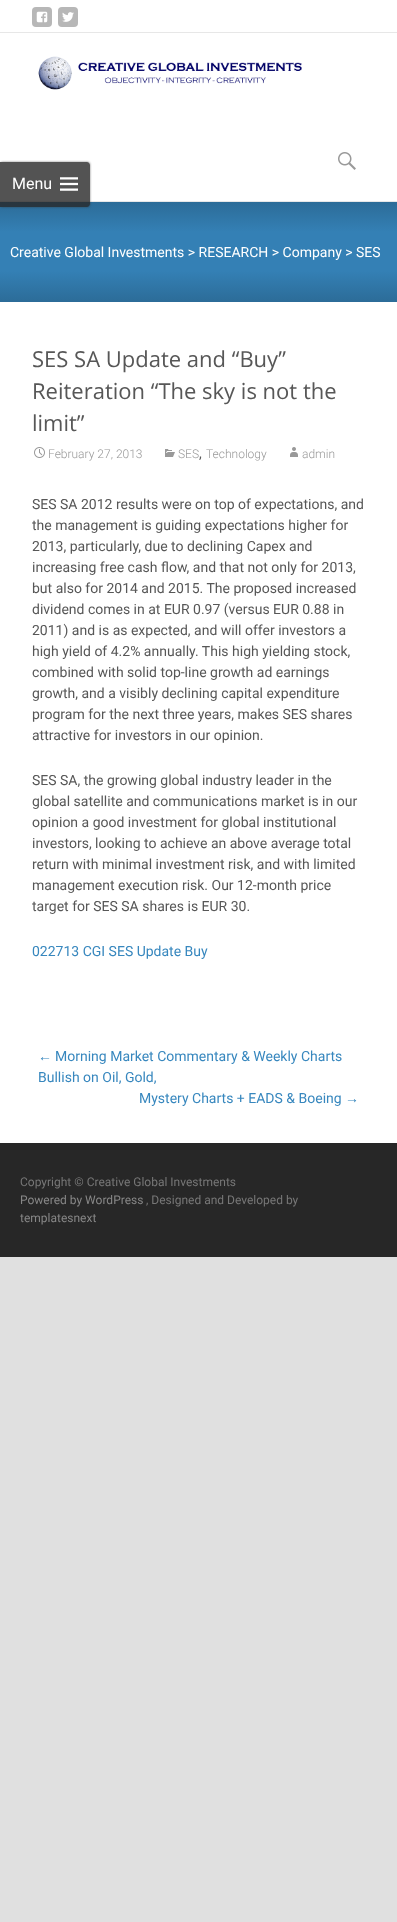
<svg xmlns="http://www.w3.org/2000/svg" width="397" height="1922">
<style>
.a{font:16px Roboto;fill:#fff}
.b{font:14px Roboto;fill:#fff}
.c{font:22px Open Sans;fill:#575757}
.d{font:300 12px Roboto;fill:#999}
.e{font:14px Roboto;fill:#575757}
.f{font:14px Roboto;fill:#3787be}
.g{font:14px Liberation Sans;fill:#3787be}
.h{font:12px Roboto;fill:#777}
.i{font:12px Roboto;fill:#878787}
</style>
<defs>
<linearGradient id="g1" gradientUnits="userSpaceOnUse" x1="199" y1="202" x2="199" y2="302"><stop offset="0" stop-color="#2c6c98"/><stop offset="0.3" stop-color="#3480b5"/><stop offset="0.69" stop-color="#3480b5"/><stop offset="1" stop-color="#2c6c98"/></linearGradient>
<clipPath id="clip1"><path d="M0 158h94v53h-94zm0 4h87c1.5 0 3 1.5 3 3v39c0 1.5-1.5 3-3 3h-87z" clip-rule="evenodd"/></clipPath>
</defs>
<rect width="100%" height="100%" fill="#e0e0e0"/>
<path fill="#fff" d="M0 0h397v1143H0z"/>
<path fill="#e7e7e7" d="M0 32h397v1H0z"/>
<rect fill="#b7b7b7" x="32" y="7" width="20" height="20" rx="4"/>
<image href="1.png" x="36" y="11" width="12" height="12"/>
<rect fill="#b7b7b7" x="58" y="7" width="20" height="20" rx="4"/>
<image href="2.png" x="62" y="12" width="12" height="10"/>
<path fill="#e7e7e7" d="M0 201h397v1H0z"/>
<image href="3.png" x="38" y="56" width="264" height="34"/>
<image href="4.png" x="338" y="152" width="18" height="18"/>
<path fill="url(#g1)" d="M0 202h397v100H0z"/>
<g clip-path="url(#clip1)">
<rect fill="#323232a3" filter="blur(1px)" y="162" width="90" height="45" rx="3"/>
</g>
<path fill="#282828cc" d="M0 162h87c1.5 0 3 1.5 3 3v39c0 1.5-1.5 3-3 3h-87z"/>
<image href="5.png" x="60" y="177" width="18" height="14"/>
<image href="6.png" x="34" y="447" width="11" height="11"/>
<image href="7.png" x="165" y="449" width="10" height="8"/>
<image href="8.png" x="290" y="447" width="8" height="10"/>
<path fill="#272727" d="M0 1143h397v114H0z"/>
<text class="a" x="12" y="189">Menu</text>
<text class="b" x="10" y="257">Creative Global Investments &gt; RESEARCH &gt; Company &gt; SES</text>
<text class="c" x="32" y="367">SES SA Update and “Buy”</text>
<text class="c" x="32" y="399">Reiteration “The sky is not the</text>
<text class="c" x="32" y="431">limit”</text>
<text class="d" x="48" y="458">February 27, 2013</text>
<text class="d" x="178" y="458">SES</text>
<text class="e" x="199" y="458">,</text>
<text class="d" x="206" y="458">Technology</text>
<text class="d" x="302" y="458">admin</text>
<text class="e" x="32" y="509">SES SA 2012 results were on top of expectations, and</text>
<text class="e" x="32" y="530">the management is guiding expectations higher for</text>
<text class="e" x="32" y="551">2013, particularly, due to declining Capex and</text>
<text class="e" x="32" y="572">increasing free cash flow, and that not only for 2013,</text>
<text class="e" x="32" y="593">but also for 2014 and 2015. The proposed increased</text>
<text class="e" x="32" y="614">dividend comes in at EUR 0.97 (versus EUR 0.88 in</text>
<text class="e" x="32" y="635">2011) and is as expected, and will offer investors a</text>
<text class="e" x="32" y="656">high yield of 4.2% annually. This high yielding stock,</text>
<text class="e" x="32" y="677">combined with solid top-line growth ad earnings</text>
<text class="e" x="32" y="698">growth, and a visibly declining capital expenditure</text>
<text class="e" x="32" y="719">program for the next three years, makes SES shares</text>
<text class="e" x="32" y="740">attractive for investors in our opinion.</text>
<text class="e" x="32" y="785">SES SA, the growing global industry leader in the</text>
<text class="e" x="32" y="806">global satellite and communications market is in our</text>
<text class="e" x="32" y="827">opinion a good investment for global institutional</text>
<text class="e" x="32" y="848">investors, looking to achieve an above average total</text>
<text class="e" x="32" y="869">return with minimal investment risk, and with limited</text>
<text class="e" x="32" y="890">management execution risk. Our 12-month price</text>
<text class="e" x="32" y="911">target for SES SA shares is EUR 30.</text>
<text class="f" x="32" y="956">022713 CGI SES Update Buy</text>
<text class="g" x="38" y="1061">←</text>
<text class="f" x="55" y="1061">Morning Market Commentary &amp; Weekly Charts</text>
<text class="f" x="38" y="1082">Bullish on Oil, Gold,</text>
<text class="f" x="139" y="1103">Mystery Charts + EADS &amp; Boeing</text>
<text class="g" x="345" y="1103">→</text>
<text class="h" x="20" y="1186">Copyright © Creative Global Investments</text>
<text class="i" x="20" y="1204">Powered by WordPress</text>
<text class="h" x="146" y="1204">, Designed and Developed by</text>
<text class="i" x="20" y="1222">templatesnext</text>
</svg>
